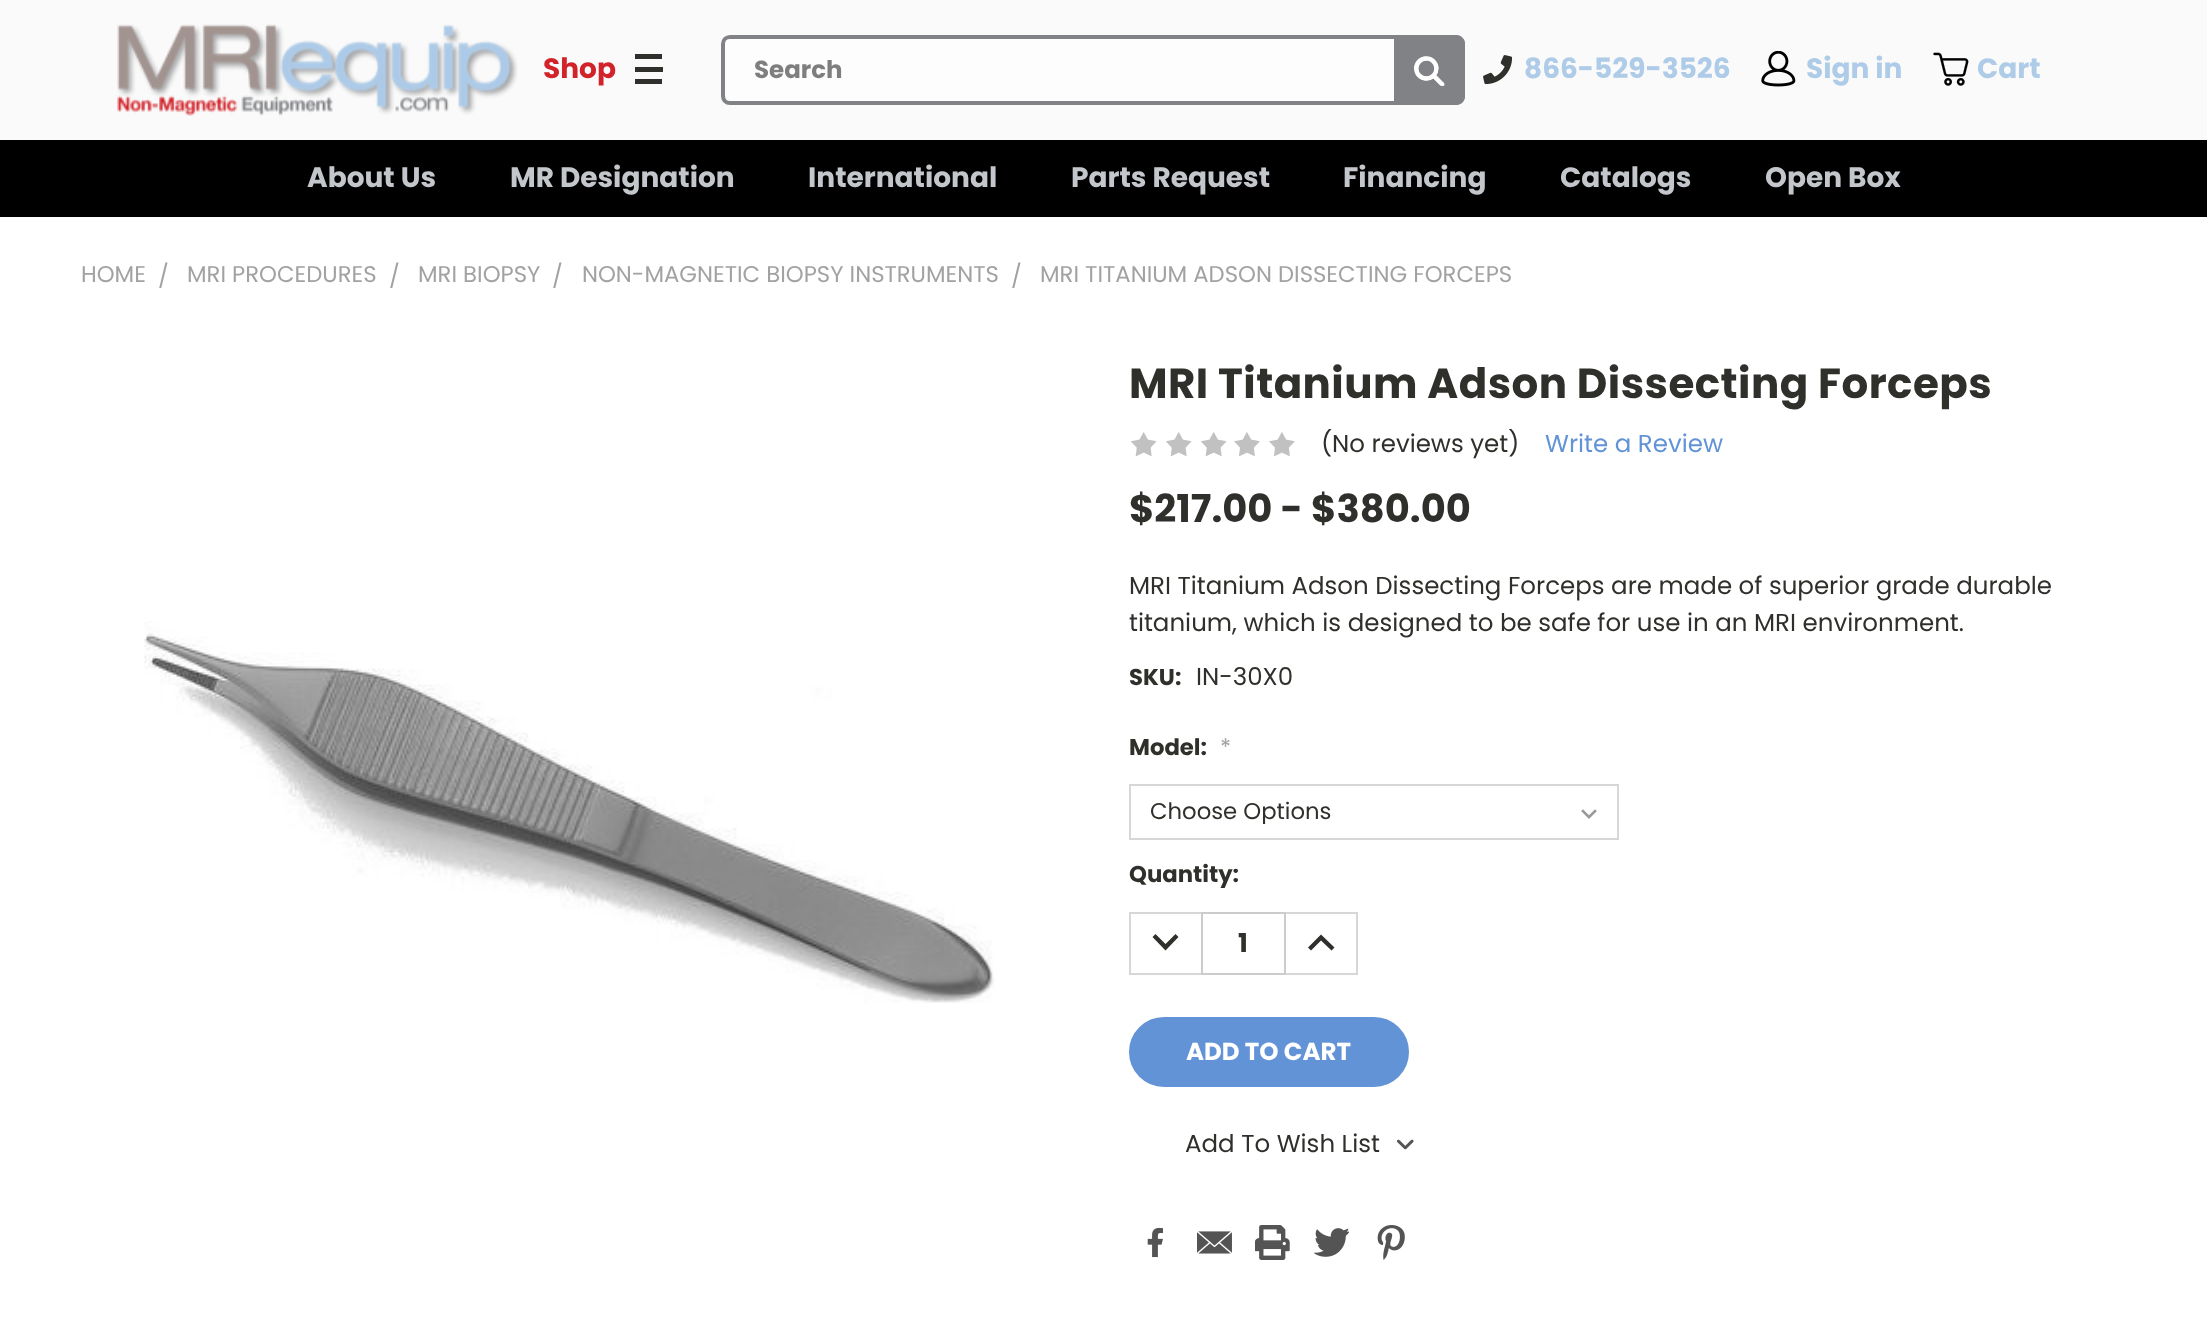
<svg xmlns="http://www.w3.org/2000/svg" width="2207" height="1328">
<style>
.a{font:bold 28px Poppins;fill:#d2232a}
.b{font:bold 24.5px Poppins;fill:#7e7e7e}
.c{font:bold 28px Poppins;fill:#aecce8}
.d{font:bold 28px Poppins;fill:#c3c6cb}
.e{font:22.75px Poppins;fill:#a2a2a2}
.f{font:bold 42px Poppins;letter-spacing:0.45px;fill:#2f2f2b}
.g{font:24.5px Poppins;fill:#2f2f2b}
.h{font:24.5px Poppins;fill:#6293d6}
.i{font:bold 38.5px Poppins;fill:#2f2f2b}
.j{font:bold 22.75px Poppins;fill:#2f2f2b}
.k{font:22.75px Poppins;fill:#2f2f2b}
.l{font:bold 26px Poppins;fill:#2f2f2b}
.m{font:bold 24.5px Poppins;fill:#fff}
</style>
<defs>
<clipPath id="clip1"><path d="M1150 800h418v24H1150z"/></clipPath>
</defs>
<rect width="100%" height="100%" fill="#fff"/>
<path fill="#fafafa" d="M0 0h2207v140H0z"/>
<image href="1.png" x="117" y="24" width="401" height="92"/>
<path fill="#2f2f2b" d="M635 67h28v5H635z"/>
<path fill="#2f2f2b" d="M635 54h27v5H635z"/>
<path fill="#2f2f2b" d="M635 79h27v5H635z"/>
<path fill="#fdfdfd" stroke="#808285" stroke-width="4" d="M730 37h666v66h-666c-4 0-7-3-7-7v-52c0-4 3-7 7-7z"/>
<path fill="#808285" d="M1398 35h58c5 0 9 4 9 9v52c0 5-4 9-9 9h-58z"/>
<path fill="#808285" fill-rule="evenodd" d="M1398 35h58c5 0 9 4 9 9v52c0 5-4 9-9 9h-58zm0 3h58c3 0 5 3 5 6v52c0 3-2 6-5 6h-58z"/>
<image href="2.png" x="1414" y="56" width="31" height="30"/>
<image href="3.png" x="1483" y="55" width="30" height="30"/>
<image href="4.png" x="1761" y="51" width="35" height="36"/>
<image href="5.png" x="1933" y="52" width="36" height="34"/>
<path fill="#000" d="M0 140h2207v77H0z"/>
<image href="6.png" x="1131" y="432" width="26" height="25"/>
<image href="6.png" x="1166" y="432" width="26" height="25"/>
<image href="6.png" x="1201" y="432" width="26" height="25"/>
<image href="7.png" x="1234" y="432" width="26" height="25"/>
<image href="7.png" x="1269" y="432" width="26" height="25"/>
<image href="8.png" x="144" y="621" width="851" height="382"/>
<image href="9.png" x="1581" y="809" width="16" height="10"/>
<path fill="none" stroke="#d7d7d7" stroke-width="2" d="M1130 785h488v54H1130z"/>
<path fill="#d7d7d7" d="M1129 912h72v2H1129z"/>
<path fill="#d7d7d7" d="M1129 973h72v2H1129z"/>
<path fill="#d7d7d7" d="M1129 912h2v63H1129z"/>
<path fill="#2f2f2b" d="M1155.5 934l10 10l10-10l3 3l-13 13.5l-13-13.5z"/>
<path fill="none" stroke="#ccc" stroke-width="2" d="M1202 913h83v61H1202z"/>
<path fill="#d7d7d7" d="M1286 912h72v2H1286z"/>
<path fill="#d7d7d7" d="M1356 912h2v63H1356z"/>
<path fill="#d7d7d7" d="M1286 973h72v2H1286z"/>
<path fill="#2f2f2b" d="M1311 950.5l10-10l10.5 10l3-3l-13.5-13l-13 13z"/>
<rect fill="#6293d6" stroke="#6293d6" stroke-width="2" x="1130" y="1018" width="278" height="68" rx="34"/>
<image href="10.png" x="1397" y="1139" width="17" height="11"/>
<image href="11.png" x="1147" y="1227" width="16" height="31"/>
<image href="12.png" x="1197" y="1231" width="35" height="23"/>
<image href="13.png" x="1255" y="1225" width="35" height="35"/>
<image href="14.png" x="1314" y="1228" width="35" height="29"/>
<image href="15.png" x="1377" y="1225" width="28" height="35"/>
<text class="a" x="543" y="78">Shop</text>
<text class="b" x="754" y="78">Search</text>
<text class="c" x="1524" y="78">866-529-3526</text>
<text class="c" x="1806" y="78">Sign in</text>
<text class="c" x="1977" y="78">Cart</text>
<text class="d" x="307" y="187">About Us</text>
<text class="d" x="510" y="187">MR Designation</text>
<text class="d" x="808" y="187">International</text>
<text class="d" x="1071" y="187">Parts Request</text>
<text class="d" x="1343" y="187">Financing</text>
<text class="d" x="1560" y="187">Catalogs</text>
<text class="d" x="1765" y="187">Open Box</text>
<text class="e" x="81" y="282">HOME</text>
<text class="e" x="158" y="284">/</text>
<text class="e" x="187" y="282">MRI PROCEDURES</text>
<text class="e" x="389" y="284">/</text>
<text class="e" x="418" y="282">MRI BIOPSY</text>
<text class="e" x="552" y="284">/</text>
<text class="e" x="582" y="282">NON-MAGNETIC BIOPSY INSTRUMENTS</text>
<text class="e" x="1011" y="284">/</text>
<text class="e" x="1040" y="282">MRI TITANIUM ADSON DISSECTING FORCEPS</text>
<text class="f" x="1129" y="398">MRI Titanium Adson Dissecting Forceps</text>
<text class="g" x="1321" y="452">(No reviews yet)</text>
<text class="h" x="1545" y="452">Write a Review</text>
<text class="i" x="1129" y="522">$217.00 - $380.00</text>
<text class="g" x="1129" y="594">MRI Titanium Adson Dissecting Forceps are made of superior grade durable</text>
<text class="g" x="1129" y="631">titanium, which is designed to be safe for use in an MRI environment.</text>
<text class="j" x="1129" y="685">SKU:</text>
<text class="g" x="1196" y="685">IN-30X0</text>
<text class="j" x="1129" y="755">Model:</text>
<text class="e" x="1220" y="755">*</text>
<g clip-path="url(#clip1)">
<text class="k" x="1150" y="819">Choose Options</text>
</g>
<text class="j" x="1129" y="882">Quantity:</text>
<text class="l" x="1238" y="952">1</text>
<text class="m" x="1186" y="1060">ADD TO CART</text>
<text class="g" x="1185" y="1152">Add To Wish List</text>
</svg>
